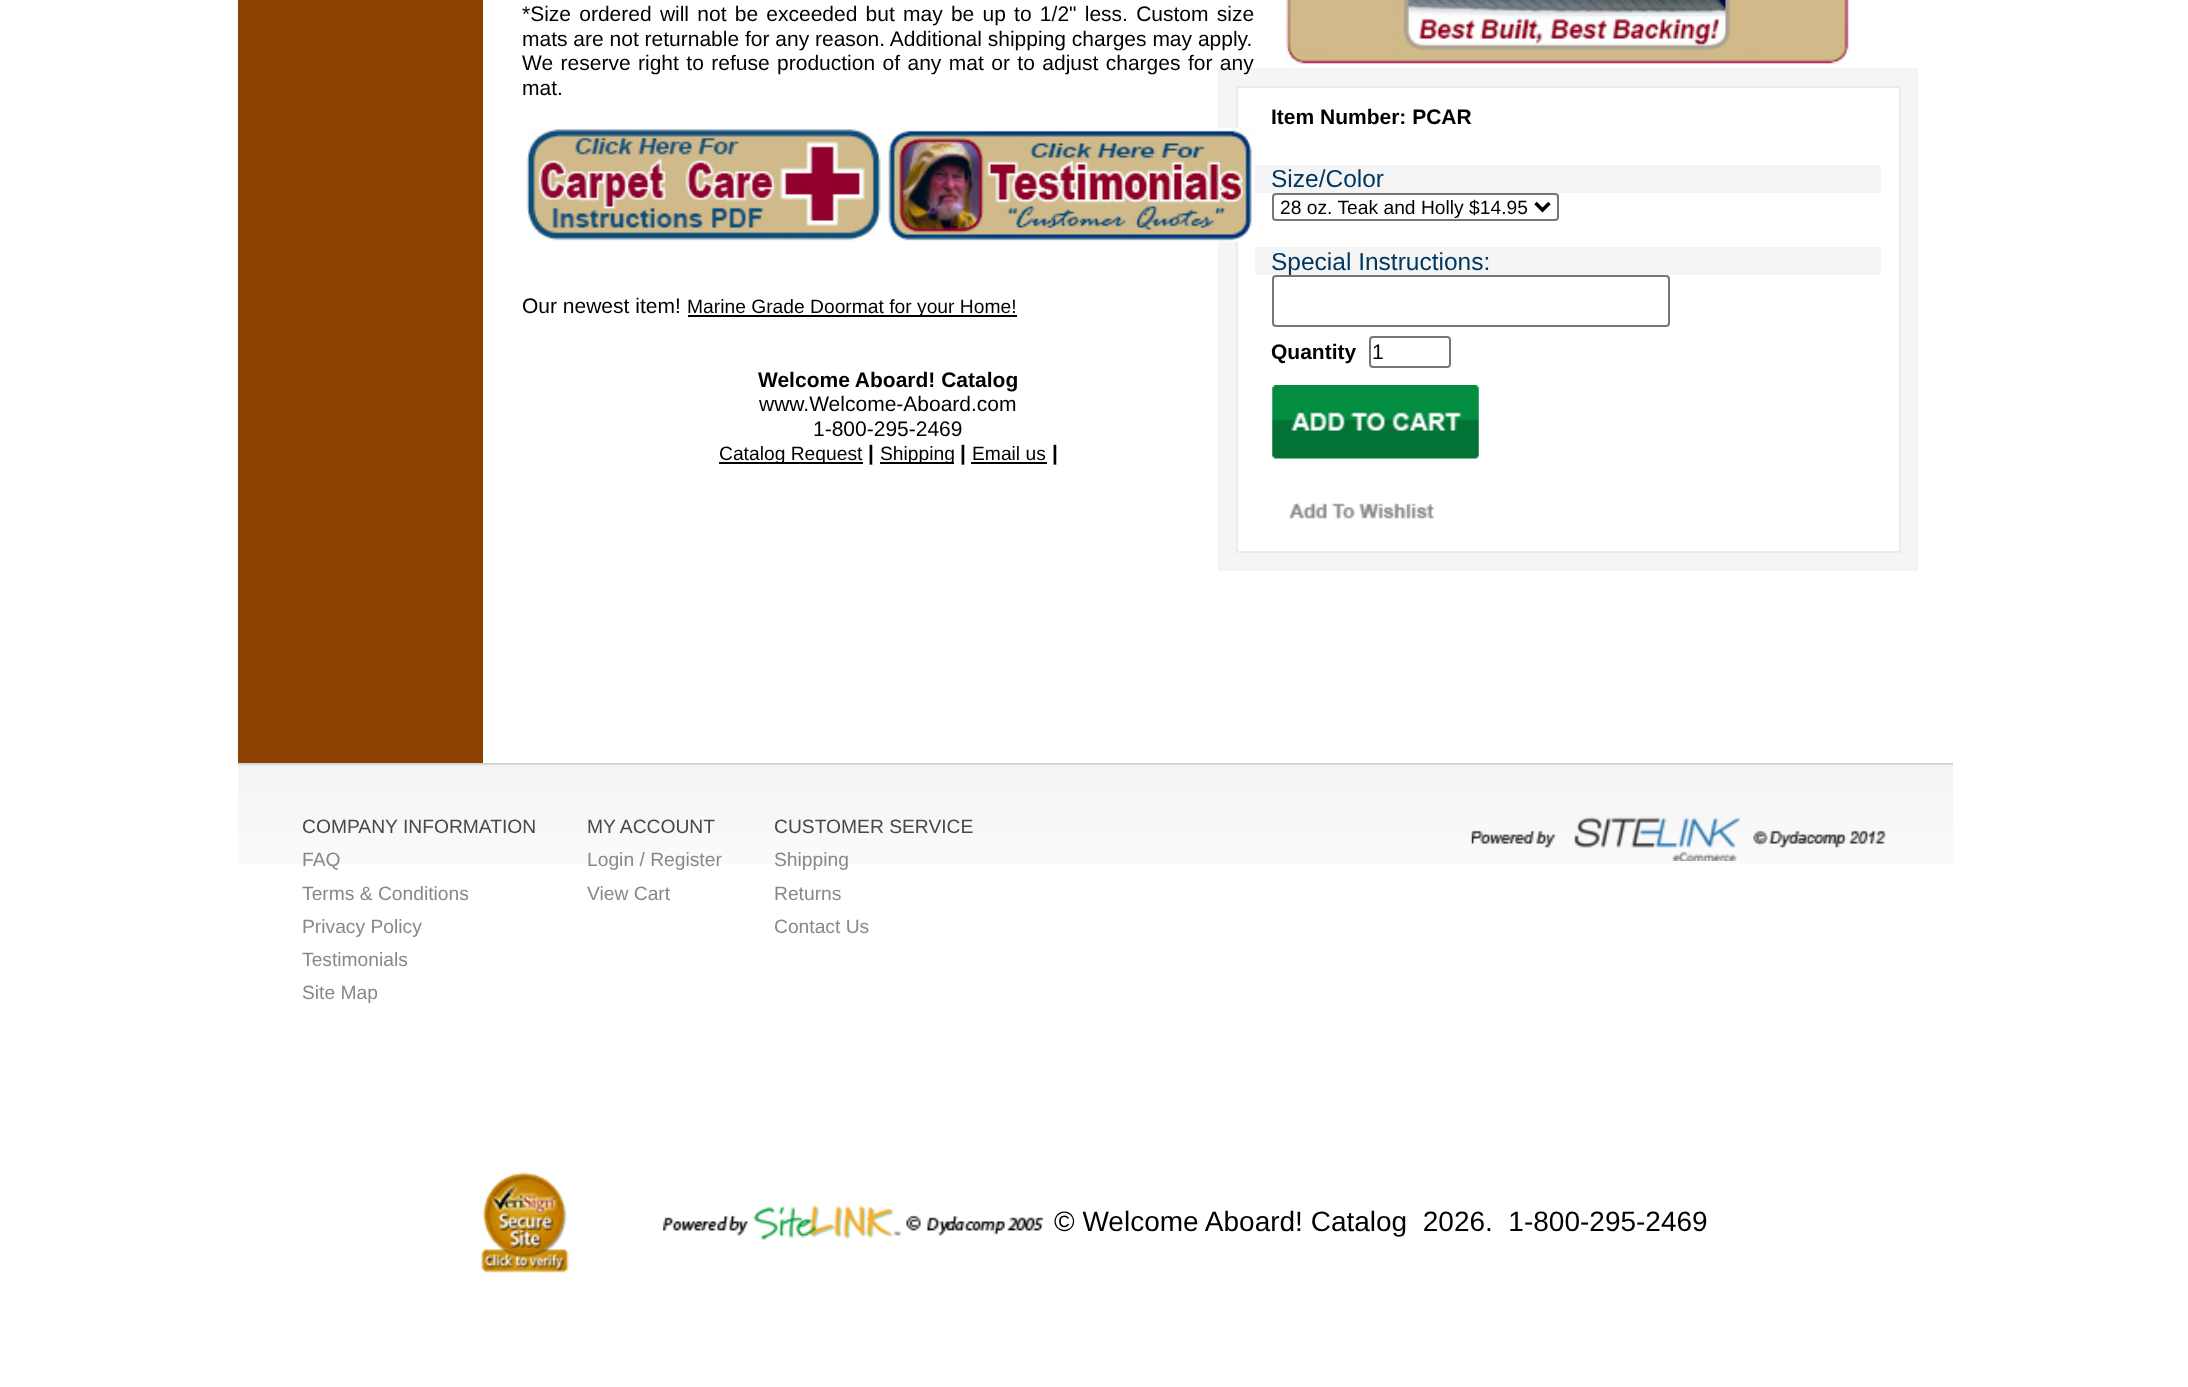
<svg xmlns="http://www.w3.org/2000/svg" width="2188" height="1387">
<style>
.a{font:21px Liberation Sans;fill:#000}
.b{font:19.25px Liberation Sans;fill:#000}
.c{font:bold 21px Liberation Sans;fill:#000}
.d{font:24.5px Liberation Sans;fill:#003861}
.e{font:19.25px Liberation Sans;fill:#484848}
.f{font:19.25px Liberation Sans;fill:#888}
.g{font:28px Liberation Sans;fill:#000}
</style>
<rect width="100%" height="100%" fill="#fff"/>
<path fill="#8b4203" d="M238 0h245v763H238z"/>
<image href="1.png" x="526" y="129" width="355" height="112"/>
<path fill="#f5f5f5" d="M1218 68h700v503H1218z"/>
<path fill="#fff" stroke="#ebebeb" stroke-width="2" d="M1237 87h663v465H1237z"/>
<image href="2.png" x="888" y="127" width="364" height="115"/>
<path fill="#000" d="M688 315h329v2H688z"/>
<path fill="#000" d="M719 462h144v2H719z"/>
<path fill="#000" d="M880 462h74v2H880z"/>
<path fill="#000" d="M971 462h76v2H971z"/>
<image href="3.png" x="1285" y="0" width="564" height="66"/>
<path fill="#f5f5f5" d="M1255 165h626v28H1255z"/>
<rect fill="none" stroke="#767676" stroke-width="2" x="1273" y="194" width="285" height="26" rx="3"/>
<path fill="none" stroke="#000" stroke-width="3.5" d="M1535.5 203l7 7l7-7"/>
<path fill="#f5f5f5" d="M1255 247h626v28H1255z"/>
<rect fill="none" stroke="#767676" stroke-width="2" x="1370" y="337" width="80" height="30" rx="3"/>
<image href="4.png" x="1272" y="385" width="207" height="74"/>
<image href="5.png" x="1289" y="503" width="146" height="16"/>
<image href="6.png" x="238" y="763" width="1715" height="101"/>
<image href="7.png" x="1471" y="817" width="415" height="44"/>
<image href="8.png" x="481" y="1172" width="88" height="101"/>
<image href="9.png" x="663" y="1205" width="380" height="36"/>
<text class="a" x="522" y="21" word-spacing="2.4">*Size ordered will not be exceeded but may be up to 1/2" less. Custom size</text>
<text class="a" x="522" y="46">mats are not returnable for any reason. Additional shipping charges may apply.</text>
<text class="a" x="522" y="70" word-spacing="1.6">We reserve right to refuse production of any mat or to adjust charges for any</text>
<text class="a" x="522" y="95">mat.</text>
<text class="a" x="522" y="313">Our newest item!</text>
<text class="b" x="687" y="313">Marine Grade Doormat for your Home!</text>
<text class="c" x="758" y="387">Welcome Aboard! Catalog</text>
<text class="a" x="759" y="411">www.Welcome-Aboard.com</text>
<text class="a" x="813" y="436">1-800-295-2469</text>
<text class="b" x="719" y="460">Catalog Request</text>
<text class="c" x="868" y="460">|</text>
<text class="b" x="880" y="460">Shipping</text>
<text class="c" x="960" y="460">|</text>
<text class="b" x="972" y="460">Email us</text>
<text class="c" x="1052" y="460">|</text>
<text class="c" x="1271" y="124">Item Number: PCAR</text>
<text class="d" x="1271" y="187">Size/Color</text>
<text class="b" x="1280" y="214">28 oz. Teak and Holly $14.95</text>
<text class="d" x="1271" y="270">Special Instructions:</text>
<rect fill="#fff" stroke="#767676" stroke-width="2" x="1273" y="276" width="396" height="50" rx="3"/>
<text class="c" x="1271" y="359">Quantity</text>
<text class="a" x="1372" y="359">1</text>
<text class="e" x="302" y="833">COMPANY INFORMATION</text>
<text class="f" x="302" y="866">FAQ</text>
<text class="f" x="302" y="900">Terms &amp; Conditions</text>
<text class="f" x="302" y="933">Privacy Policy</text>
<text class="f" x="302" y="966">Testimonials</text>
<text class="f" x="302" y="999">Site Map</text>
<text class="e" x="587" y="833">MY ACCOUNT</text>
<text class="f" x="587" y="866">Login / Register</text>
<text class="f" x="587" y="900">View Cart</text>
<text class="e" x="774" y="833">CUSTOMER SERVICE</text>
<text class="f" x="774" y="866">Shipping</text>
<text class="f" x="774" y="900">Returns</text>
<text class="f" x="774" y="933">Contact Us</text>
<text class="g" xml:space="preserve" x="1054" y="1231">© Welcome Aboard! Catalog  2026.  1-800-295-2469</text>
</svg>
